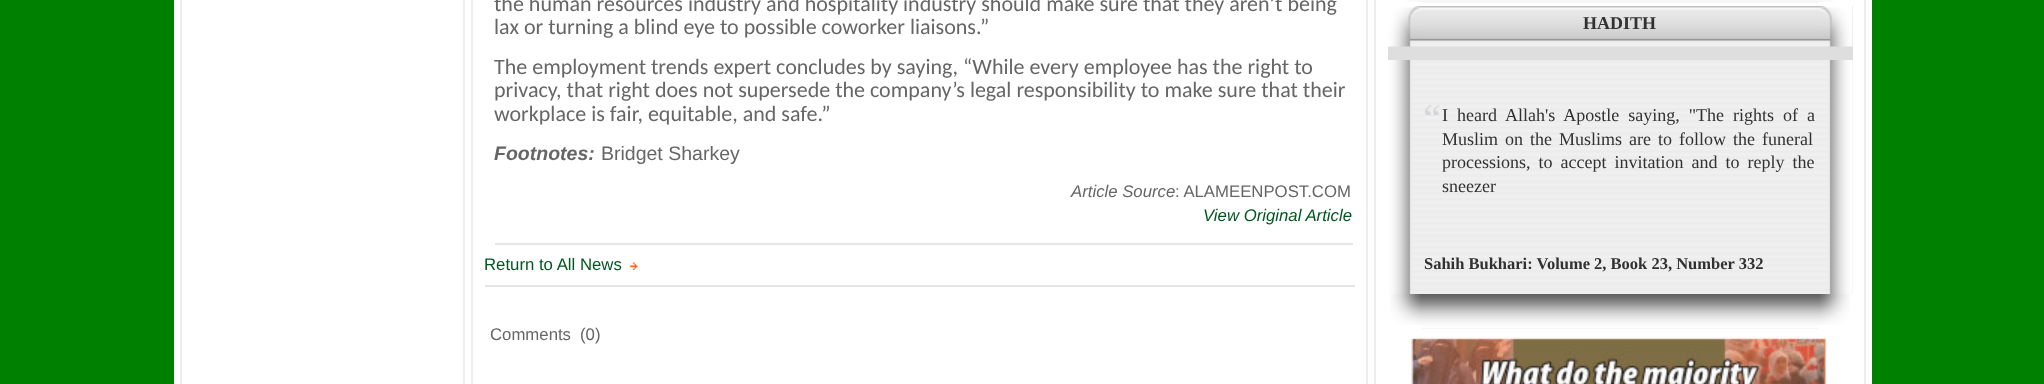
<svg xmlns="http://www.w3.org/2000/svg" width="2044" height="384">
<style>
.a{font:22px Carlito;fill:#666}
.b{font:italic bold 19.5px Liberation Sans;fill:#666}
.c{font:19.5px Liberation Sans;fill:#666}
.d{font:italic 16.75px Liberation Sans;fill:#666}
.e{font:16.75px Liberation Sans;fill:#666}
.f{font:italic 16.75px Liberation Sans;fill:#00571f}
.g{font:16.75px Liberation Sans;fill:#00571f}
.h{font:bold 18px Liberation Serif;fill:#313131}
.i{font:18px Liberation Serif;fill:#313131}
.j{font:bold 16.5px Liberation Serif;fill:#313131}
</style>
<rect width="100%" height="100%" fill="#008000"/>
<path fill="#fff" d="M174 0h1698v384H174z"/>
<path fill="none" stroke="#eee" stroke-width="2" d="M181 -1h283v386H181z"/>
<path fill="none" stroke="#eee" stroke-width="2" d="M472 -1h895v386H472z"/>
<path fill="#e5e5e5" d="M495 243h858v2H495z"/>
<image href="1.png" x="629" y="262" width="9" height="8"/>
<path fill="#e5e5e5" d="M485 285h870v2H485z"/>
<path fill="none" stroke="#eee" stroke-width="2" d="M1375 -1h490v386H1375z"/>
<image href="2.png" x="1407" y="0" width="15" height="2"/>
<path fill="#f7f7f7" d="M1422 0h396v3H1422z"/>
<image href="3.png" x="1818" y="0" width="15" height="2"/>
<path fill="#dedede" d="M1388 46h430v14H1388z"/>
<image href="4.png" x="1388" y="6" width="34" height="41"/>
<path fill="#dedede" d="M1818 6h35v54H1818z"/>
<image href="5.png" x="1818" y="6" width="35" height="41"/>
<image href="6.png" x="1422" y="6" width="396" height="41"/>
<image href="7.png" x="1388" y="60" width="34" height="234"/>
<image href="8.png" x="1422" y="60" width="396" height="234"/>
<image href="9.png" x="1425" y="105" width="15" height="12"/>
<path fill="#f7f7f7" d="M1852 60h1v234H1852z"/>
<image href="10.png" x="1818" y="60" width="34" height="234"/>
<image href="11.png" x="1390" y="294" width="32" height="31"/>
<path fill="#f7f7f7" d="M1422 328h396v1H1422z"/>
<image href="12.png" x="1422" y="294" width="396" height="34"/>
<image href="13.png" x="1818" y="294" width="32" height="31"/>
<image href="14.png" x="1411" y="337" width="416" height="47"/>
<text class="a" x="494" y="11">the human resources industry and hospitality industry should make sure that they aren’t being</text>
<text class="a" x="494" y="34">lax or turning a blind eye to possible coworker liaisons.”</text>
<text class="a" x="494" y="74">The employment trends expert concludes by saying, “While every employee has the right to</text>
<text class="a" x="494" y="97">privacy, that right does not supersede the company’s legal responsibility to make sure that their</text>
<text class="a" x="494" y="121">workplace is fair, equitable, and safe.”</text>
<text class="b" x="494" y="160">Footnotes:</text>
<text class="c" x="601" y="160">Bridget Sharkey</text>
<text class="d" x="1071" y="197">Article Source</text>
<text class="e" x="1175" y="197">: ALAMEENPOST.COM</text>
<text class="f" x="1203" y="221">View Original Article</text>
<text class="g" x="484" y="270">Return to All News</text>
<text class="e" x="490" y="340">Comments</text>
<text class="e" x="580" y="340">(0)</text>
<text class="h" x="1583" y="29">HADITH</text>
<text class="i" x="1442" y="121" word-spacing="4.5">I heard Allah's Apostle saying, "The rights of a</text>
<text class="i" x="1442" y="145" word-spacing="2.5">Muslim on the Muslims are to follow the funeral</text>
<text class="i" x="1442" y="168" word-spacing="3.5">processions, to accept invitation and to reply the</text>
<text class="i" x="1442" y="192">sneezer</text>
<text class="j" x="1424" y="269">Sahih Bukhari: Volume 2, Book 23, Number 332</text>
</svg>
